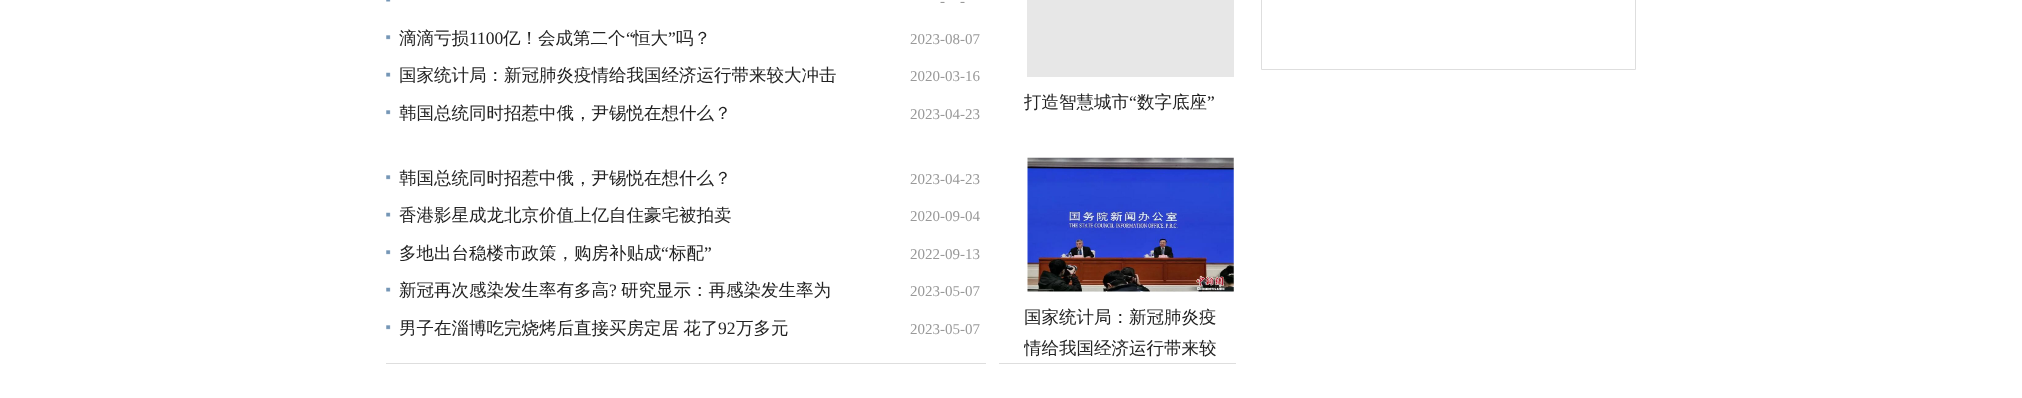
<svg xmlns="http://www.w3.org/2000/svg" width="2022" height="398">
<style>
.a{font:15px Liberation Serif;fill:#999}
.b{font:500 17.5px WenQuanYi Zen Hei;fill:#222}
.c{font:17.5px Liberation Serif;fill:#222}
</style>
<defs>
<clipPath id="clip1"><path d="M1024 295h206v69H1024z"/></clipPath>
</defs>
<rect width="100%" height="100%" fill="#fff"/>
<path fill="#dedede" d="M386 363h600v1H386z"/>
<image href="1.png" x="386" y="0" width="5" height="2"/>
<image href="2.png" x="386" y="35" width="5" height="5"/>
<image href="3.png" x="386" y="72" width="5" height="5"/>
<image href="2.png" x="386" y="110" width="5" height="5"/>
<image href="2.png" x="386" y="175" width="5" height="5"/>
<image href="4.png" x="386" y="212" width="5" height="5"/>
<image href="2.png" x="386" y="250" width="5" height="5"/>
<image href="4.png" x="386" y="287" width="5" height="5"/>
<image href="2.png" x="386" y="325" width="5" height="5"/>
<path fill="#dedede" d="M999 363h237v1H999z"/>
<path fill="#e7e7e7" d="M1027 0h207v77H1027z"/>
<image href="5.png" x="1027" y="157" width="207" height="135"/>
<path fill="none" stroke="#dedede" d="M1261.5 -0.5h374v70H1261.5z"/>
<text class="a" x="940" y="6">-</text>
<text class="a" x="960" y="6">-</text>
<text class="b" x="399" y="44">滴滴亏损</text>
<text class="c" x="469" y="44">1100</text>
<text class="b" x="503" y="44">亿！会成第二个</text>
<text class="c" x="626" y="44">“</text>
<text class="b" x="633" y="44">恒大</text>
<text class="c" x="668" y="44">”</text>
<text class="b" x="676" y="44">吗？</text>
<text class="a" x="910" y="44">2023-08-07</text>
<text class="b" x="399" y="81">国家统计局：新冠肺炎疫情给我国经济运行带来较大冲击</text>
<text class="a" x="910" y="81">2020-03-16</text>
<text class="b" x="399" y="119">韩国总统同时招惹中俄，尹锡悦在想什么？</text>
<text class="a" x="910" y="119">2023-04-23</text>
<text class="b" x="399" y="184">韩国总统同时招惹中俄，尹锡悦在想什么？</text>
<text class="a" x="910" y="184">2023-04-23</text>
<text class="b" x="399" y="221">香港影星成龙北京价值上亿自住豪宅被拍卖</text>
<text class="a" x="910" y="221">2020-09-04</text>
<text class="b" x="399" y="259">多地出台稳楼市政策，购房补贴成</text>
<text class="c" x="661" y="259">“</text>
<text class="b" x="669" y="259">标配</text>
<text class="c" x="704" y="259">”</text>
<text class="a" x="910" y="259">2022-09-13</text>
<text class="b" x="399" y="296">新冠再次感染发生率有多高</text>
<text class="c" x="609" y="296">?</text>
<text class="b" x="621" y="296">研究显示：再感染发生率为</text>
<text class="a" x="910" y="296">2023-05-07</text>
<text class="b" x="399" y="334" word-spacing="-1">男子在淄博吃完烧烤后直接买房定居 花了</text>
<text class="c" x="718" y="334">92</text>
<text class="b" x="736" y="334">万多元</text>
<text class="a" x="910" y="334">2023-05-07</text>
<text class="b" x="1024" y="108">打造智慧城市</text>
<text class="c" x="1129" y="108">“</text>
<text class="b" x="1137" y="108">数字底座</text>
<text class="c" x="1207" y="108">”</text>
<text class="b" x="1024" y="323">国家统计局：新冠肺炎疫</text>
<g clip-path="url(#clip1)">
<text class="b" x="1024" y="354">情给我国经济运行带来较</text>
</g>
</svg>
